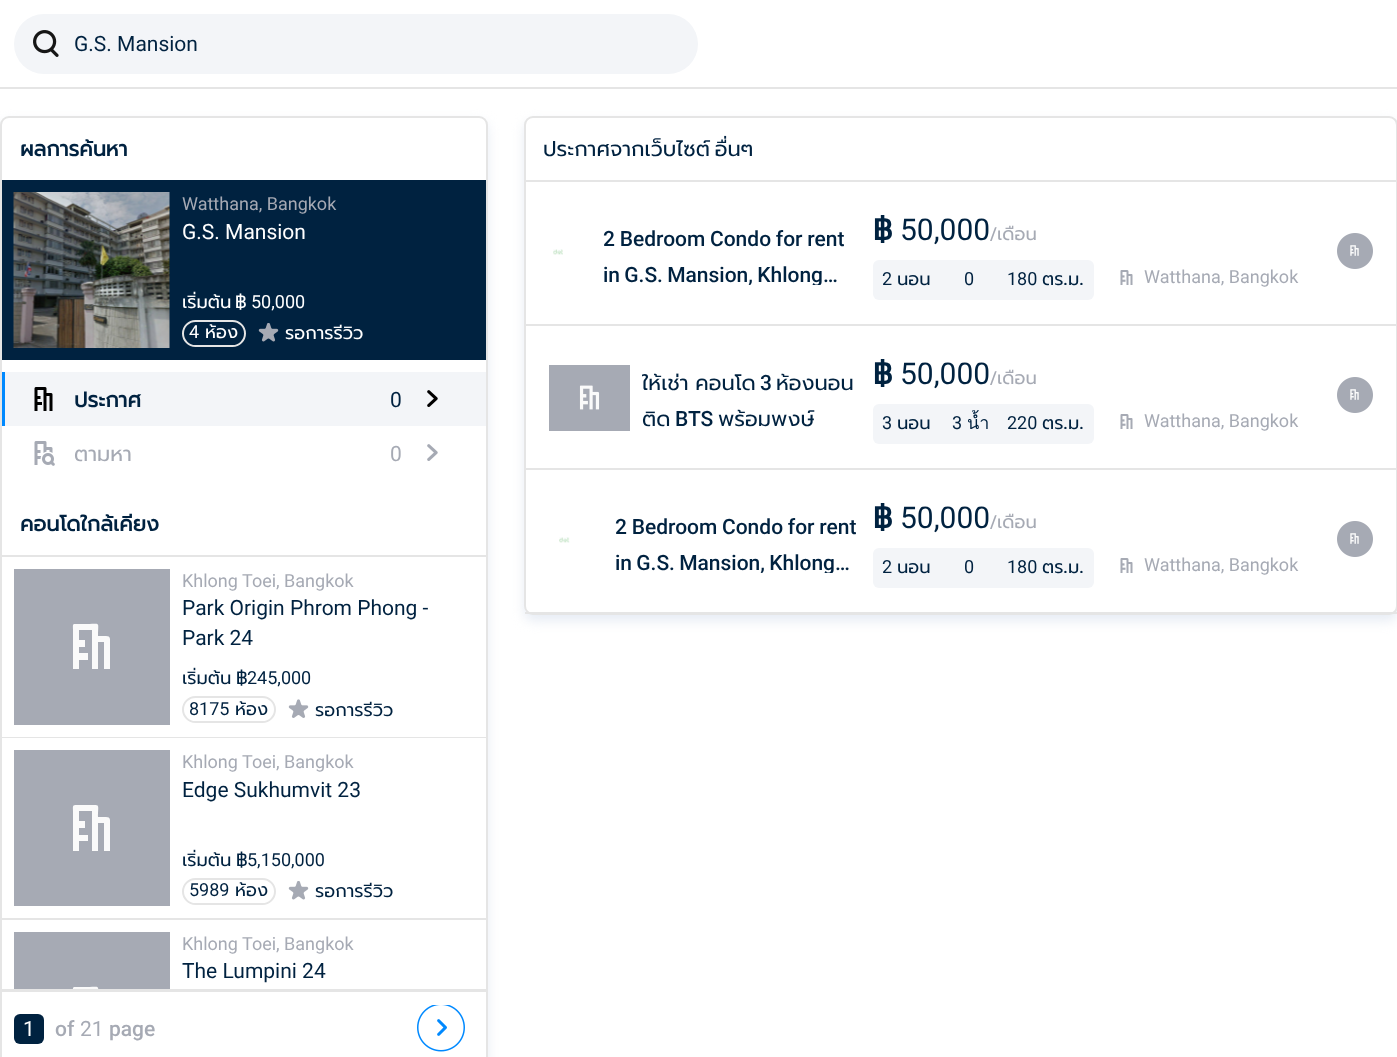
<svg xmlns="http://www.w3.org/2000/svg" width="1397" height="1057">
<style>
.a{font:21px Roboto;fill:#002240}
.b{font:bold 21px Prompt;fill:#002240}
.c{font:18px Roboto;fill:#a6aab4}
.d{font:21px Roboto;fill:#fff}
.e{font:18px Prompt;fill:#fff}
.f{font:18px Roboto;fill:#fff}
.g{font:21px Prompt;fill:#a6aab4}
.h{font:21px Roboto;fill:#a6aab4}
.i{font:18px Prompt;fill:#002240}
.j{font:18px Roboto;fill:#002240}
.k{font:500 21px Roboto;fill:#a6aab4}
.l{font:21px Prompt;fill:#002240}
.m{font:500 21px Roboto;fill:#002240}
.n{font:bold 30px Prompt;fill:#002240}
.o{font:30px Roboto;fill:#002240}
.p{font:500 18px Roboto;fill:#a6aab4}
.q{font:18px Prompt;fill:#a6aab4}
.r{font:500 18px Roboto;fill:#002240}
</style>
<defs>
<clipPath id="clip1"><path d="M14 932h156v57H14z"/></clipPath>
<clipPath id="clip2"><path d="M182 192h292v156H182z"/></clipPath>
<clipPath id="clip3"><path d="M182 569h292v156H182z"/></clipPath>
<clipPath id="clip4"><path d="M182 750h292v156H182z"/></clipPath>
<clipPath id="clip5"><path d="M603 221h258v64H603z"/></clipPath>
<clipPath id="clip6"><path d="M642 365h219v64H642z"/></clipPath>
<clipPath id="clip7"><path d="M615 509h246v64H615z"/></clipPath>
</defs>
<rect width="100%" height="100%" fill="#fff"/>
<path fill="#e5e5e5" d="M0 87h1397v2H0z"/>
<rect fill="#f3f5f8" x="14" y="14" width="684" height="60" rx="30"/>
<image href="1.png" x="33" y="30" width="26" height="27"/>
<rect fill="#e7ecf4" filter="blur(6px)" y="122" width="488" height="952" rx="9"/>
<rect fill="#fff" stroke="#e5e5e5" stroke-width="2" x="1" y="117" width="486" height="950" rx="8"/>
<path fill="#002240" d="M2 180h484v180H2z"/>
<image href="2.png" x="13" y="192" width="157" height="156"/>
<rect fill="none" stroke="#e5e5e5" stroke-width="2" x="183" y="321" width="62" height="25" rx="12.5"/>
<image href="3.png" x="258" y="323" width="21" height="19"/>
<path fill="#f3f5f8" d="M5 372h481v54H5z"/>
<path fill="#0089ff" d="M2 372h3v54H2z"/>
<image href="4.png" x="34" y="387" width="19" height="24"/>
<image href="5.png" x="427" y="390" width="11" height="17"/>
<image href="6.png" x="34" y="441" width="21" height="25"/>
<image href="7.png" x="427" y="444" width="11" height="17"/>
<path fill="#e5e5e5" d="M2 555h484v2H2z"/>
<path fill="#a6aab4" d="M14 569h156v156H14z"/>
<path fill="#fafafa" fill-rule="evenodd" d="M73 630v39h6v-9h9v-7h-9v-6h6v-7h-6v-10h13v39h6v-27h6v27h6v-25c0-5 1-8-4-8h-8c0-15 3-12-11-12h-10c-5 0-4 0-4 6z"/>
<rect fill="none" stroke="#e5e5e5" stroke-width="2" x="183" y="697" width="92" height="25" rx="12.5"/>
<image href="8.png" x="288" y="699" width="21" height="19"/>
<path fill="#e5e5e5" d="M2 737h484v1H2z"/>
<path fill="#a6aab4" d="M14 750h156v156H14z"/>
<path fill="#fafafa" fill-rule="evenodd" d="M73 811v40h6v-10h9v-6h-9v-7h6v-7h-6v-10h13v40h6v-28h6v28h6v-26c0-5 1-8-4-8h-8c0-14 3-12-11-12h-10c-5 0-4 1-4 6z"/>
<rect fill="none" stroke="#e5e5e5" stroke-width="2" x="183" y="879" width="92" height="25" rx="12.5"/>
<image href="9.png" x="288" y="881" width="21" height="19"/>
<path fill="#e5e5e5" d="M2 918h484v2H2z"/>
<path fill="#a6aab4" d="M14 932h156v57H14z"/>
<g clip-path="url(#clip1)">
<path fill="#fafafa" fill-rule="evenodd" d="M73 993v39h6v-9h9v-7h-9v-6h6v-7h-6v-10h13v39h6v-27h6v27h6v-25c0-5 1-8-4-8h-8c0-15 3-12-11-12h-10c-5 0-4 0-4 6z"/>
</g>
<path fill="#e5e5e5" d="M2 989h484v3H2z"/>
<rect fill="#002240" x="14" y="1014" width="30" height="30" rx="6"/>
<image href="10.png" x="417" y="1005" width="48" height="47"/>
<rect fill="#e7ecf4" filter="blur(6px)" x="524" y="122" width="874" height="499" rx="9"/>
<rect fill="#fff" stroke="#e5e5e5" stroke-width="2" x="525" y="117" width="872" height="497" rx="8"/>
<path fill="#e5e5e5" d="M525 612h872v2H525z"/>
<path fill="#e5e5e5" d="M525 180h872v2H525z"/>
<image href="11.png" x="553" y="249" width="10" height="6"/>
<rect fill="#f3f5f8" x="873" y="260" width="221" height="40" rx="6"/>
<image href="12.png" x="1120" y="270" width="13" height="15"/>
<image href="13.png" x="1337" y="233" width="36" height="36"/>
<path fill="#e5e5e5" d="M525 324h872v2H525z"/>
<image href="14.png" x="549" y="365" width="81" height="66"/>
<rect fill="#f3f5f8" x="873" y="404" width="221" height="40" rx="6"/>
<image href="12.png" x="1120" y="414" width="13" height="15"/>
<image href="13.png" x="1337" y="377" width="36" height="36"/>
<path fill="#e5e5e5" d="M525 468h872v2H525z"/>
<image href="15.png" x="559" y="537" width="11" height="6"/>
<rect fill="#f3f5f8" x="873" y="548" width="221" height="40" rx="6"/>
<image href="12.png" x="1120" y="558" width="13" height="15"/>
<image href="13.png" x="1337" y="521" width="36" height="36"/>
<text class="a" x="74" y="51">G.S. Mansion</text>
<text class="b" x="20" y="156">ผลการค้นหา</text>
<text class="c" x="182" y="210">Watthana, Bangkok</text>
<text class="d" x="182" y="239">G.S. Mansion</text>
<g clip-path="url(#clip2)">
<text class="e" x="182" y="308">เริ่มต้น</text>
</g>
<text class="e" x="235" y="308">฿</text>
<text class="f" x="251" y="308">50,000</text>
<text class="f" x="189" y="338">4</text>
<text class="e" x="205" y="338">ห้อง</text>
<text class="e" x="285" y="339">รอการรีวิว</text>
<text class="b" x="74" y="407">ประกาศ</text>
<text class="a" x="390" y="407">0</text>
<text class="g" x="74" y="461">ตามหา</text>
<text class="h" x="390" y="461">0</text>
<text class="b" x="20" y="531">คอนโดใกล้เคียง</text>
<text class="c" x="182" y="587">Khlong Toei, Bangkok</text>
<text class="a" x="182" y="615">Park Origin Phrom Phong -</text>
<text class="a" x="182" y="645">Park 24</text>
<g clip-path="url(#clip3)">
<text class="i" x="182" y="684" word-spacing="-2">เริ่มต้น ฿</text>
</g>
<text class="j" x="247" y="684">245,000</text>
<text class="j" x="189" y="715">8175</text>
<text class="i" x="235" y="715">ห้อง</text>
<text class="i" x="315" y="716">รอการรีวิว</text>
<text class="c" x="182" y="768">Khlong Toei, Bangkok</text>
<text class="a" x="182" y="797">Edge Sukhumvit 23</text>
<g clip-path="url(#clip4)">
<text class="i" x="182" y="866" word-spacing="-2">เริ่มต้น ฿</text>
</g>
<text class="j" x="247" y="866">5,150,000</text>
<text class="j" x="189" y="896">5989</text>
<text class="i" x="235" y="896">ห้อง</text>
<text class="i" x="315" y="897">รอการรีวิว</text>
<text class="c" x="182" y="950">Khlong Toei, Bangkok</text>
<text class="a" x="182" y="978">The Lumpini 24</text>
<text class="d" x="23" y="1036">1</text>
<text class="k" x="55" y="1036">of</text>
<text class="h" x="80" y="1036">21</text>
<text class="k" x="109" y="1036">page</text>
<text class="l" x="543" y="156" word-spacing="-3">ประกาศจากเว็บไซต์ อื่นๆ</text>
<text class="m" x="603" y="246" word-spacing="-0.5">2 Bedroom Condo for rent</text>
<g clip-path="url(#clip5)">
<text class="m" x="603" y="282" word-spacing="-1">in G.S. Mansion, Khlong…</text>
</g>
<text class="n" x="873" y="240">฿</text>
<text class="o" x="900" y="240">50,000</text>
<text class="p" x="990" y="240">/</text>
<text class="q" x="997" y="240">เดือน</text>
<text class="j" x="882" y="285">2</text>
<text class="i" x="897" y="285">นอน</text>
<text class="j" x="964" y="285">0</text>
<text class="j" x="1007" y="285">180</text>
<text class="i" x="1042" y="285">ตร</text>
<text class="r" x="1063" y="285">.</text>
<text class="i" x="1068" y="285">ม</text>
<text class="r" x="1079" y="285">.</text>
<text class="c" x="1144" y="283">Watthana, Bangkok</text>
<g clip-path="url(#clip6)">
<text class="l" x="642" y="390" word-spacing="-1">ให้เช่า คอนโด</text>
</g>
<text class="m" x="760" y="390">3</text>
<text class="l" x="776" y="390">ห้องนอน</text>
<g clip-path="url(#clip6)">
<text class="l" x="642" y="426">ติด</text>
</g>
<text class="m" x="675" y="426">BTS</text>
<text class="l" x="718" y="426">พร้อมพงษ์</text>
<text class="n" x="873" y="384">฿</text>
<text class="o" x="900" y="384">50,000</text>
<text class="p" x="990" y="384">/</text>
<text class="q" x="997" y="384">เดือน</text>
<text class="j" x="882" y="429">3</text>
<text class="i" x="897" y="429">นอน</text>
<text class="j" x="952" y="429">3</text>
<text class="i" x="967" y="429">น้ำ</text>
<text class="j" x="1007" y="429">220</text>
<text class="i" x="1042" y="429">ตร</text>
<text class="r" x="1063" y="429">.</text>
<text class="i" x="1068" y="429">ม</text>
<text class="r" x="1079" y="429">.</text>
<text class="c" x="1144" y="427">Watthana, Bangkok</text>
<text class="m" x="615" y="534" word-spacing="-0.5">2 Bedroom Condo for rent</text>
<g clip-path="url(#clip7)">
<text class="m" x="615" y="570" word-spacing="-1">in G.S. Mansion, Khlong…</text>
</g>
<text class="n" x="873" y="528">฿</text>
<text class="o" x="900" y="528">50,000</text>
<text class="p" x="990" y="528">/</text>
<text class="q" x="997" y="528">เดือน</text>
<text class="j" x="882" y="573">2</text>
<text class="i" x="897" y="573">นอน</text>
<text class="j" x="964" y="573">0</text>
<text class="j" x="1007" y="573">180</text>
<text class="i" x="1042" y="573">ตร</text>
<text class="r" x="1063" y="573">.</text>
<text class="i" x="1068" y="573">ม</text>
<text class="r" x="1079" y="573">.</text>
<text class="c" x="1144" y="571">Watthana, Bangkok</text>
</svg>
